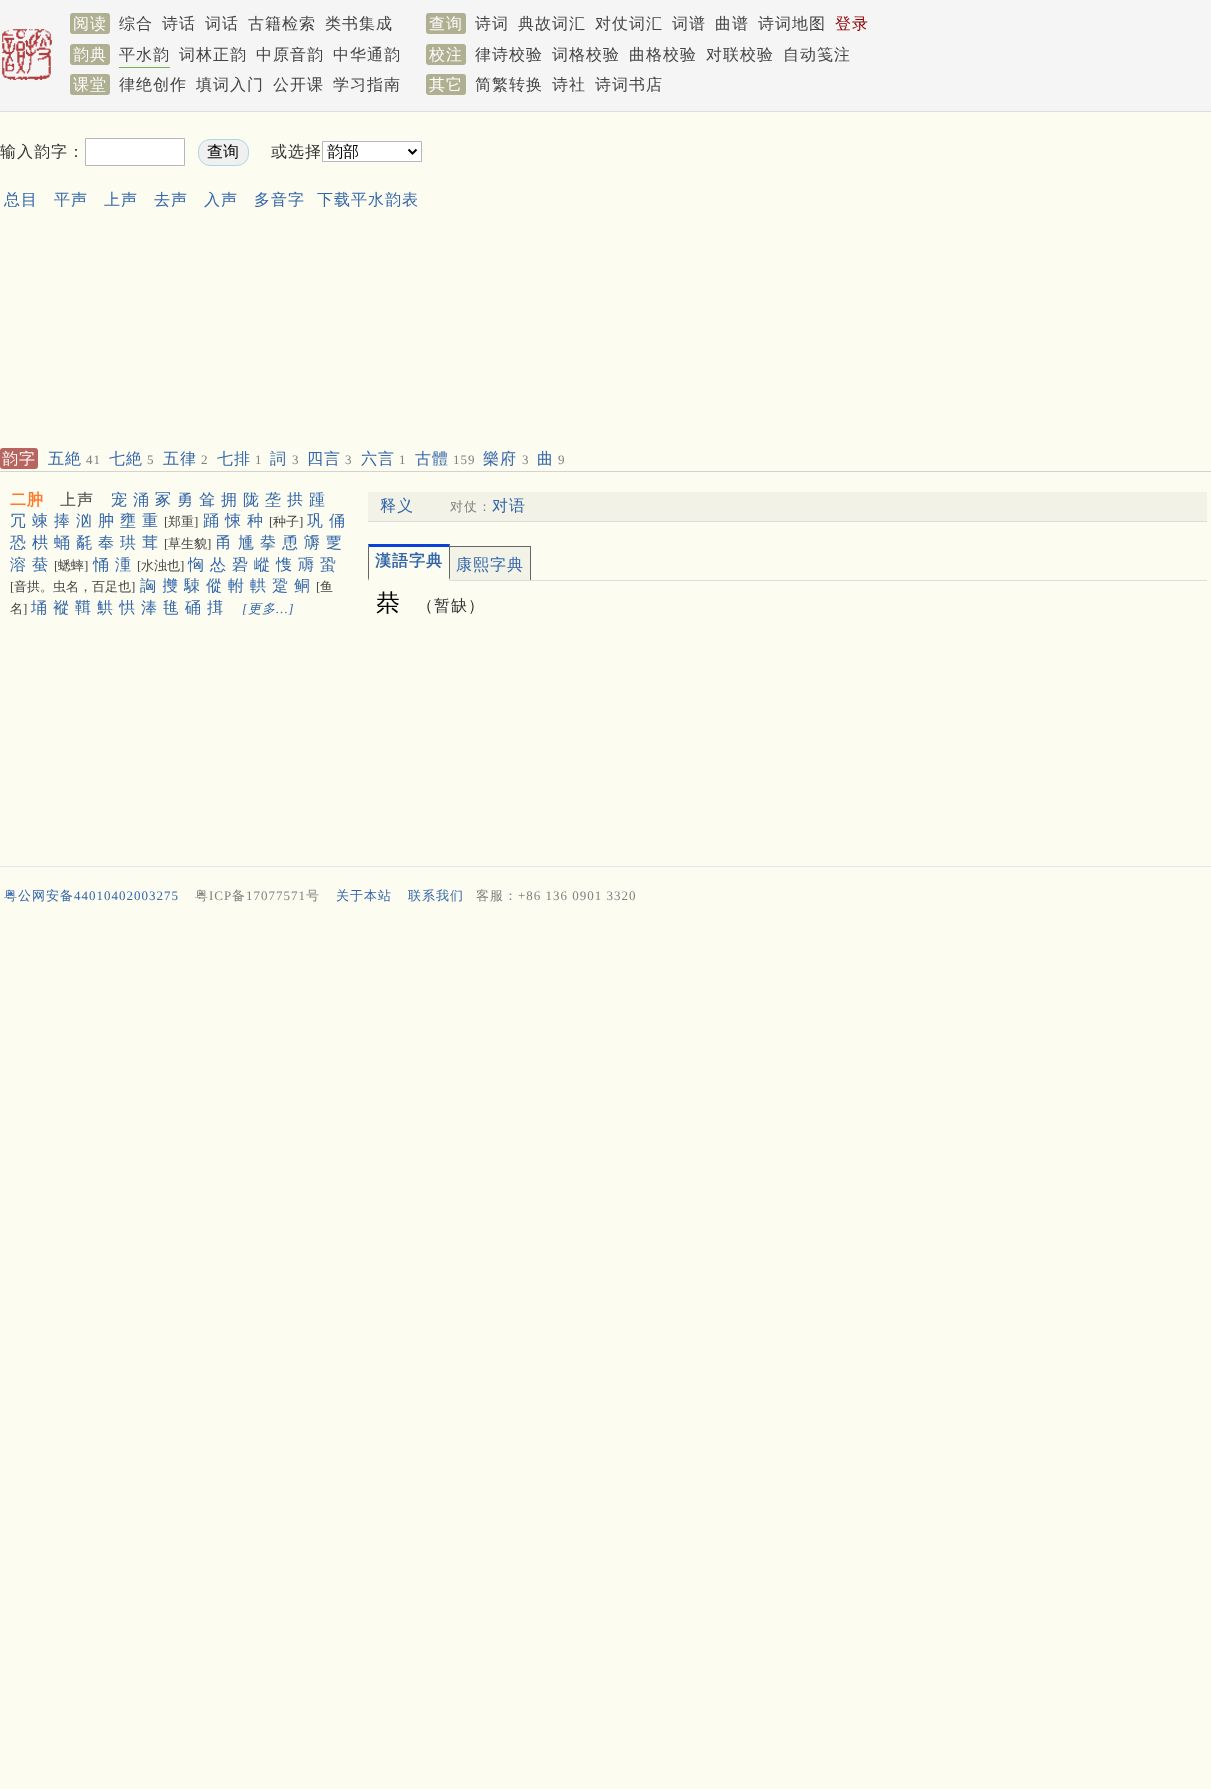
<svg xmlns="http://www.w3.org/2000/svg" width="1211" height="1789">
<style>
.a{font:500 16px WenQuanYi Zen Hei;letter-spacing:1px;fill:#fbfbfb}
.b{font:500 16px WenQuanYi Zen Hei;letter-spacing:1px;fill:#444}
.c{font:500 16px WenQuanYi Zen Hei;letter-spacing:1px;fill:#8b0000}
.d{font:500 16px WenQuanYi Zen Hei;letter-spacing:1px;fill:#333}
.e{font:500 16px WenQuanYi Zen Hei;fill:#000}
.f{font:500 16px WenQuanYi Zen Hei;letter-spacing:1px;fill:#36a}
.g{font:13px Liberation Serif;letter-spacing:1px;fill:#808080}
.h{font:bold 16px WenQuanYi Zen Hei;letter-spacing:1px;fill:#ff7a2a}
.i{font:13px Liberation Serif;fill:#444}
.j{font:500 13px WenQuanYi Zen Hei;fill:#444}
.k{font:italic 13px Liberation Serif;letter-spacing:1px;fill:#36a}
.l{font:italic 500 13px WenQuanYi Zen Hei;letter-spacing:1px;fill:#36a}
.m{font:500 13px WenQuanYi Zen Hei;letter-spacing:1px;fill:#808080}
.n{font:bold 16px WenQuanYi Zen Hei;letter-spacing:1px;fill:#36a}
.o{font:500 24px WenQuanYi Zen Hei;letter-spacing:1px;fill:#000}
.p{font:500 13px WenQuanYi Zen Hei;letter-spacing:1px;fill:#36a}
.q{font:13px Liberation Serif;letter-spacing:1px;fill:#36a}
</style>
<rect width="100%" height="100%" fill="#fcfcf1"/>
<path fill="#f5f5f5" d="M0 0h1211v111H0z"/>
<path fill="#ddd" d="M0 111h1211v1H0z"/>
<rect fill="#afaf92" x="70" y="13" width="40" height="21" rx="3"/>
<rect fill="#afaf92" x="426" y="13" width="40" height="21" rx="3"/>
<image href="1.png" x="2" y="29" width="50" height="51"/>
<rect fill="#afaf92" x="70" y="44" width="40" height="21" rx="3"/>
<path fill="#72b352" d="M119 67h51v1H119z"/>
<rect fill="#afaf92" x="426" y="44" width="40" height="21" rx="3"/>
<rect fill="#afaf92" x="70" y="74" width="40" height="21" rx="3"/>
<rect fill="#afaf92" x="426" y="74" width="40" height="21" rx="3"/>
<path fill="#fff" stroke="#b4b7be" d="M85.5 138.5h99v27H85.5z"/>
<rect fill="#f0f0f0" stroke="#add8e6" x="198.5" y="139.5" width="50" height="26" rx="11.5"/>
<path fill="#fff" stroke="#b4b7be" d="M322.5 141.5h99v20H322.5z"/>
<path fill="none" stroke="#000" stroke-width="2" d="M408.5 149.5l4 4l4-4"/>
<path fill="#d3d3d3" d="M0 471h1211v1H0z"/>
<rect fill="#b86560" y="448" width="38" height="21" rx="3"/>
<path fill="#f2f2e7" d="M368 492h839v29H368z"/>
<path fill="#ddd" d="M368 521h839v1H368z"/>
<path fill="#666" d="M449 546h82v1H449z"/>
<path fill="#0941d9" d="M368 544h82l-1 3h-80z"/>
<path fill="#f2f2e7" d="M449 547h81v33H449z"/>
<path fill="#ddd" d="M368 580h839v1H368z"/>
<path fill="#666" d="M450 544v37l-1-3v-31z"/>
<path fill="#fcfcf1" d="M450 581h-82l1-3h80z"/>
<path fill="#666" d="M368 581v-37l1 3v31z"/>
<path fill="#666" d="M530 546h1v34H530z"/>
<path fill="#e5e5e5" d="M0 866h1211v1H0z"/>
<text class="a" x="73" y="29">阅读</text>
<text class="b" x="119" y="29">综合</text>
<text class="b" x="162" y="29">诗话</text>
<text class="b" x="205" y="29">词话</text>
<text class="b" x="248" y="29">古籍检索</text>
<text class="b" x="325" y="29">类书集成</text>
<text class="a" x="429" y="29">查询</text>
<text class="b" x="475" y="29">诗词</text>
<text class="b" x="518" y="29">典故词汇</text>
<text class="b" x="595" y="29">对仗词汇</text>
<text class="b" x="672" y="29">词谱</text>
<text class="b" x="715" y="29">曲谱</text>
<text class="b" x="758" y="29">诗词地图</text>
<text class="c" x="835" y="29">登录</text>
<text class="a" x="73" y="60">韵典</text>
<text class="b" x="119" y="60">平水韵</text>
<text class="b" x="179" y="60">词林正韵</text>
<text class="b" x="256" y="60">中原音韵</text>
<text class="b" x="333" y="60">中华通韵</text>
<text class="a" x="429" y="60">校注</text>
<text class="b" x="475" y="60">律诗校验</text>
<text class="b" x="552" y="60">词格校验</text>
<text class="b" x="629" y="60">曲格校验</text>
<text class="b" x="706" y="60">对联校验</text>
<text class="b" x="783" y="60">自动笺注</text>
<text class="a" x="73" y="90">课堂</text>
<text class="b" x="119" y="90">律绝创作</text>
<text class="b" x="196" y="90">填词入门</text>
<text class="b" x="273" y="90">公开课</text>
<text class="b" x="333" y="90">学习指南</text>
<text class="a" x="429" y="90">其它</text>
<text class="b" x="475" y="90">简繁转换</text>
<text class="b" x="552" y="90">诗社</text>
<text class="b" x="595" y="90">诗词书店</text>
<text class="d" x="0" y="157">输入韵字：</text>
<text class="e" x="207" y="157">查询</text>
<text class="d" x="271" y="157">或选择</text>
<text class="e" x="327" y="157">韵部</text>
<text class="f" x="4" y="205">总目</text>
<text class="f" x="54" y="205">平声</text>
<text class="f" x="104" y="205">上声</text>
<text class="f" x="154" y="205">去声</text>
<text class="f" x="204" y="205">入声</text>
<text class="f" x="254" y="205">多音字</text>
<text class="f" x="317" y="205">下载平水韵表</text>
<text class="a" x="2" y="464">韵字</text>
<text class="f" x="48" y="464">五絶</text>
<text class="g" x="86" y="464">41</text>
<text class="f" x="109" y="464">七絶</text>
<text class="g" x="147" y="464">5</text>
<text class="f" x="163" y="464">五律</text>
<text class="g" x="201" y="464">2</text>
<text class="f" x="217" y="464">七排</text>
<text class="g" x="255" y="464">1</text>
<text class="f" x="270" y="464">詞</text>
<text class="g" x="292" y="464">3</text>
<text class="f" x="307" y="464">四言</text>
<text class="g" x="345" y="464">3</text>
<text class="f" x="361" y="464">六言</text>
<text class="g" x="399" y="464">1</text>
<text class="f" x="415" y="464">古體</text>
<text class="g" x="453" y="464">159</text>
<text class="f" x="483" y="464">樂府</text>
<text class="g" x="522" y="464">3</text>
<text class="f" x="537" y="464">曲</text>
<text class="g" x="558" y="464">9</text>
<text class="h" x="10" y="505">二肿</text>
<text class="b" x="60" y="505">上声</text>
<text class="f" x="111" y="505">宠</text>
<text class="f" x="133" y="505">涌</text>
<text class="f" x="155" y="505">冢</text>
<text class="f" x="177" y="505">勇</text>
<text class="f" x="199" y="505">耸</text>
<text class="f" x="221" y="505">拥</text>
<text class="f" x="243" y="505">陇</text>
<text class="f" x="265" y="505">垄</text>
<text class="f" x="287" y="505">拱</text>
<text class="f" x="309" y="505">踵</text>
<text class="f" x="10" y="526">冗</text>
<text class="f" x="32" y="526">竦</text>
<text class="f" x="54" y="526">捧</text>
<text class="f" x="76" y="526">汹</text>
<text class="f" x="98" y="526">肿</text>
<text class="f" x="120" y="526">壅</text>
<text class="f" x="142" y="526">重</text>
<text class="i" x="164" y="526">[</text>
<text class="j" x="168" y="526">郑重</text>
<text class="i" x="194" y="526">]</text>
<text class="f" x="203" y="526">踊</text>
<text class="f" x="225" y="526">悚</text>
<text class="f" x="247" y="526">种</text>
<text class="i" x="269" y="526">[</text>
<text class="j" x="273" y="526">种子</text>
<text class="i" x="299" y="526">]</text>
<text class="f" x="307" y="526">巩</text>
<text class="f" x="329" y="526">俑</text>
<text class="f" x="10" y="548">恐</text>
<text class="f" x="32" y="548">栱</text>
<text class="f" x="54" y="548">蛹</text>
<text class="f" x="76" y="548">氄</text>
<text class="f" x="98" y="548">奉</text>
<text class="f" x="120" y="548">珙</text>
<text class="f" x="142" y="548">茸</text>
<text class="i" x="164" y="548">[</text>
<text class="j" x="168" y="548">草生貌</text>
<text class="i" x="207" y="548">]</text>
<text class="f" x="216" y="548">甬</text>
<text class="f" x="238" y="548">尰</text>
<text class="f" x="260" y="548">拲</text>
<text class="f" x="282" y="548">恿</text>
<text class="f" x="304" y="548">䢇</text>
<text class="f" x="326" y="548">覂</text>
<text class="f" x="10" y="570">溶</text>
<text class="f" x="32" y="570">蛬</text>
<text class="i" x="54" y="570">[</text>
<text class="j" x="58" y="570">蟋蟀</text>
<text class="i" x="84" y="570">]</text>
<text class="f" x="93" y="570">悀</text>
<text class="f" x="115" y="570">湩</text>
<text class="i" x="137" y="570">[</text>
<text class="j" x="141" y="570">水浊也</text>
<text class="i" x="180" y="570">]</text>
<text class="f" x="188" y="570">恟</text>
<text class="f" x="210" y="570">怂</text>
<text class="f" x="232" y="570">䂬</text>
<text class="f" x="254" y="570">嵷</text>
<text class="f" x="276" y="570">愯</text>
<text class="f" x="298" y="570">䢆</text>
<text class="f" x="320" y="570">蛩</text>
<text class="i" x="10" y="591">[</text>
<text class="j" x="14" y="591">音拱。虫名，百足也</text>
<text class="i" x="131" y="591">]</text>
<text class="f" x="140" y="591">詾</text>
<text class="f" x="162" y="591">㩳</text>
<text class="f" x="184" y="591">駷</text>
<text class="f" x="206" y="591">傱</text>
<text class="f" x="228" y="591">軵</text>
<text class="f" x="250" y="591">輁</text>
<text class="f" x="272" y="591">跫</text>
<text class="f" x="294" y="591">鲖</text>
<text class="i" x="316" y="591">[</text>
<text class="j" x="320" y="591">鱼</text>
<text class="j" x="10" y="613">名</text>
<text class="i" x="23" y="613">]</text>
<text class="f" x="31" y="613">埇</text>
<text class="f" x="53" y="613">䙕</text>
<text class="f" x="75" y="613">䩸</text>
<text class="f" x="97" y="613">䱋</text>
<text class="f" x="119" y="613">㤨</text>
<text class="f" x="141" y="613">淎</text>
<text class="f" x="163" y="613">㲝</text>
<text class="f" x="185" y="613">硧</text>
<text class="f" x="207" y="613">搑</text>
<text class="k" x="242" y="613">[</text>
<text class="l" x="248" y="613">更多</text>
<text class="k" x="276" y="613">…]</text>
<text class="f" x="380" y="511">释义</text>
<text class="m" x="450" y="511">对仗：</text>
<text class="f" x="492" y="511">对语</text>
<text class="n" x="375" y="566">漢語字典</text>
<text class="f" x="456" y="570">康熙字典</text>
<text class="o" x="376" y="611">㭟</text>
<text class="d" x="417" y="611">（暂缺）</text>
<text class="p" x="4" y="900">粤公网安备</text>
<text class="q" x="74" y="900">44010402003275</text>
<text class="m" x="195" y="900">粤</text>
<text class="g" x="209" y="900">ICP</text>
<text class="m" x="232" y="900">备</text>
<text class="g" x="246" y="900">17077571</text>
<text class="m" x="306" y="900">号</text>
<text class="p" x="336" y="900">关于本站</text>
<text class="p" x="408" y="900">联系我们</text>
<text class="m" x="476" y="900">客服：</text>
<text class="g" x="518" y="900">+86 136 0901 3320</text>
</svg>
